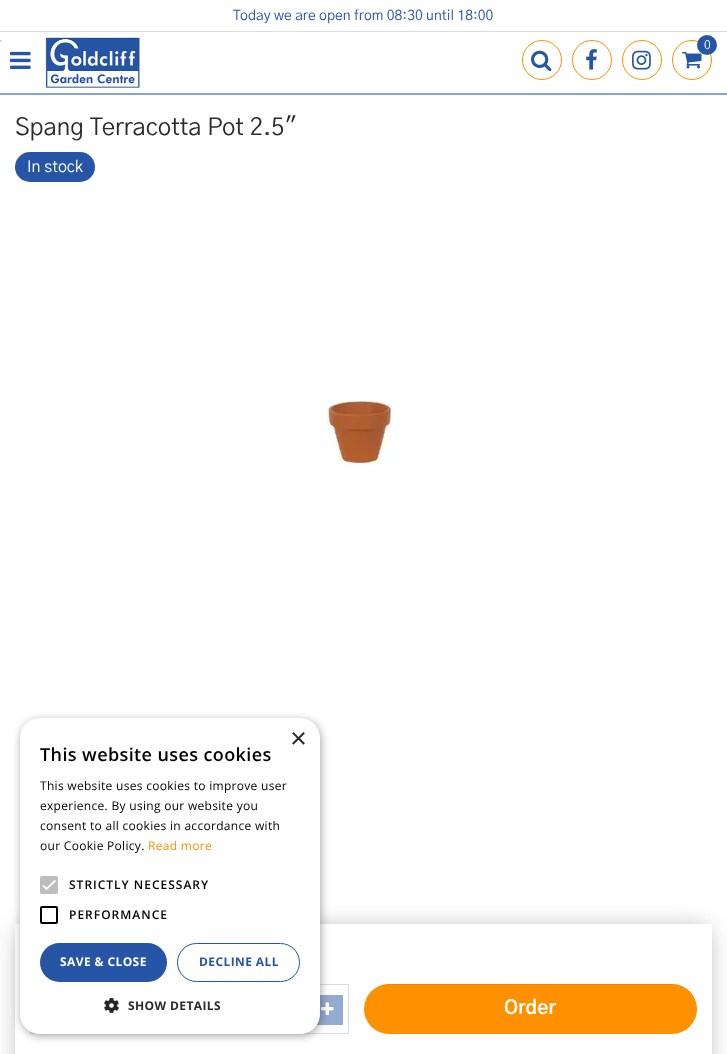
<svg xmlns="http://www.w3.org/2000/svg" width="727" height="1054">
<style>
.a{font:14px 'Gothic A1';fill:#2655a5}
.b{font:12px 'Gothic A1';fill:#fff}
.c{font:24px 'Gothic A1';fill:#2b2b2b}
.d{font:16px 'Gothic A1';fill:#fff}
.e{font:bold 19px 'Gothic A1';fill:#fff}
.f{font:29px Liberation Sans;fill:#2b2b2b}
.g{font:600 18px Open Sans;letter-spacing:0.4px;fill:#000}
.h{font:12px Open Sans;letter-spacing:0.3px;fill:#000}
.i{font:12px Open Sans;letter-spacing:0.3px;fill:#ff9000}
.j{font:600 12px Open Sans;letter-spacing:1px;fill:#000}
.k{font:bold 12px Open Sans;letter-spacing:0.4px;fill:#fff}
.l{font:bold 12px Open Sans;letter-spacing:0.4px;fill:#2655a5}
.m{font:bold 12px Open Sans;letter-spacing:0.4px;fill:#2b2b2b}
</style>
<defs>
<clipPath id="clip1"><path d="M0 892h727v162h-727zm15 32h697v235h-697z" clip-rule="evenodd"/></clipPath>
</defs>
<rect width="100%" height="100%" fill="#fff"/>
<path fill="#82a5e2" d="M0 93h727v2H0z"/>
<path fill="#ddd" d="M0 31h727v1H0z"/>
<path fill="#ddd" d="M0 40h2v2H0z"/>
<image href="1.png" x="45" y="37" width="95" height="51"/>
<circle fill="none" stroke="#ff9000" cx="542" cy="60" r="19.5"/>
<image href="2.png" x="531" y="50" width="21" height="22"/>
<circle fill="none" stroke="#ff9000" cx="592" cy="60" r="19.5"/>
<image href="3.png" x="586" y="49" width="11" height="21"/>
<circle fill="none" stroke="#ff9000" cx="642" cy="60" r="19.5"/>
<image href="4.png" x="632" y="50" width="19" height="20"/>
<circle fill="none" stroke="#ff9000" cx="692" cy="60" r="19.5"/>
<image href="5.png" x="682" y="52" width="20" height="17"/>
<circle fill="#2655a5" cx="707" cy="45" r="10"/>
<image href="6.png" x="10" y="51" width="21" height="18"/>
<rect fill="#2655a5" x="15" y="152" width="80" height="30" rx="15"/>
<image href="7.png" x="327" y="400" width="65" height="66"/>
<g clip-path="url(#clip1)">
<path fill="#aaa" filter="blur(12px)" d="M20 929h687v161H20z"/>
</g>
<path fill="none" stroke="#ddd" d="M30.5 984.5h318v49H30.5z"/>
<path fill="#93aad2" d="M316 995h27v30H316z"/>
<image href="8.png" x="321" y="1002" width="13" height="13"/>
<rect fill="#ff9000" x="364" y="984" width="333" height="50" rx="25"/>
<path fill="#00000012" d="M389 985h283c14 0 25 11 25 24c0-14-11-25-25-25h-283c-14 0-25 11-25 25c0-13 11-24 25-24z"/>
<rect fill="#00000059" filter="blur(4px)" x="21" y="720" width="300" height="316" rx="20"/>
<rect fill="#fff" x="20" y="718" width="300" height="316" rx="20"/>
<rect fill="#bdbdbd" x="40" y="876" width="18" height="18" rx="2"/>
<path fill="none" stroke="#fff" stroke-width="1.8" d="M43 885.5l3.5 3.5l9-8.5"/>
<rect fill="none" stroke="#000" stroke-width="2" x="41" y="907" width="16" height="16" rx="1"/>
<rect fill="#2655a5" x="40" y="943" width="127" height="39" rx="19.5"/>
<rect fill="none" stroke="#2655a5" x="177.5" y="943.5" width="122" height="38" rx="19"/>
<image href="9.png" x="104" y="998" width="15" height="15"/>
<text class="a" x="233" y="20">Today we are open from 08:30 until 18:00</text>
<text class="b" x="704" y="49">0</text>
<text class="c" x="15" y="135">Spang Terracotta Pot 2.5"</text>
<text class="d" x="27" y="172">In stock</text>
<text class="e" x="504" y="1014">Order</text>
<text class="f" x="290" y="748">×</text>
<text class="g" x="40" y="761">This website uses cookies</text>
<text class="h" x="40" y="790">This website uses cookies to improve user</text>
<text class="h" x="40" y="810">experience. By using our website you</text>
<text class="h" x="40" y="830">consent to all cookies in accordance with</text>
<text class="h" x="40" y="850">our Cookie Policy.</text>
<text class="i" x="148" y="850">Read more</text>
<text class="j" x="69" y="889">STRICTLY NECESSARY</text>
<text class="j" x="69" y="919">PERFORMANCE</text>
<text class="k" x="60" y="966">SAVE &amp; CLOSE</text>
<text class="l" x="199" y="966">DECLINE ALL</text>
<text class="m" x="128" y="1010">SHOW DETAILS</text>
</svg>
